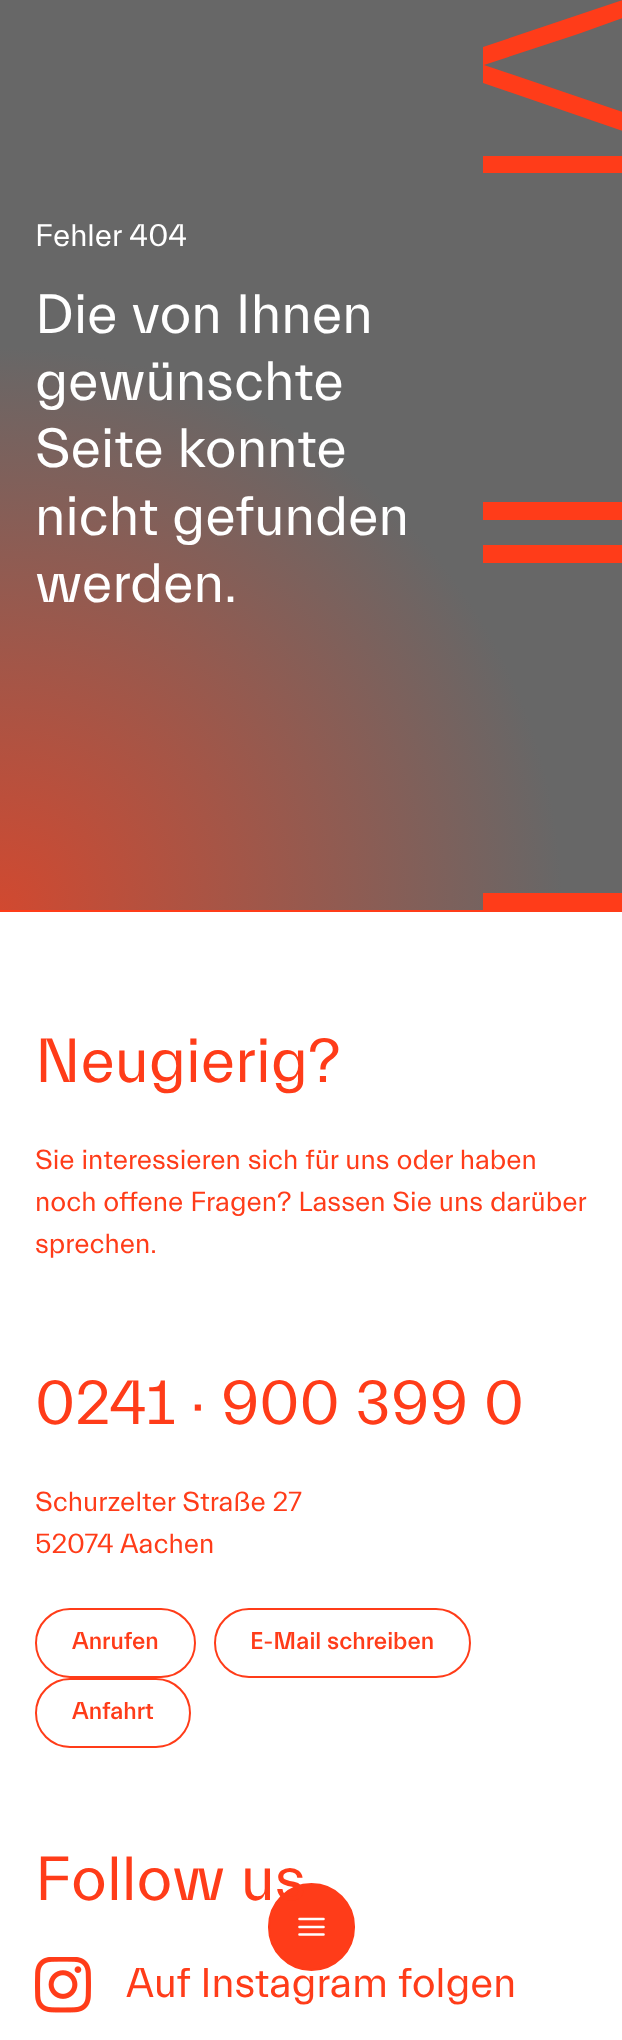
<svg xmlns="http://www.w3.org/2000/svg" width="622" height="2040">
<style>
.a{font:31.5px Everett;fill:#fff}
.b{font:56px Everett;fill:#fff}
.c{font:63px Everett;fill:#ff3c19}
.d{font:28px Everett;fill:#ff3c19}
.e{font:500 24.5px Everett;fill:#ff3c19}
.f{font:42px Everett;fill:#ff3c19}
</style>
<defs>
<radialGradient id="g1" gradientUnits="userSpaceOnUse" cx="0" cy="910" r="1103"><stop offset="0" stop-color="#d14930"/><stop offset="0.51" stop-color="#676767"/></radialGradient>
<clipPath id="clip1"><path d="M483 0h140v173H483z"/></clipPath>
</defs>
<rect width="100%" height="100%" fill="#fff"/>
<path fill="url(#g1)" d="M0 0h622v910H0z"/>
<g clip-path="url(#clip1)">
<path fill="#ff3c19" d="M581 33l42-15v-18l-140 47v36l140 48v-19l-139-47l82-27zm-98 123h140v18h-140z"/>
</g>
<path fill="#ff3c19" d="M483 502h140v18h-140zm0 43h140v18h-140z"/>
<path fill="#ff3c19" d="M483 893h139v17H483z"/>
<path fill="#ff3c19" d="M0 910h622v2H0z"/>
<rect fill="none" stroke="#ff3c19" stroke-width="2" x="36" y="1609" width="159" height="68" rx="34"/>
<rect fill="none" stroke="#ff3c19" stroke-width="2" x="215" y="1609" width="255" height="68" rx="34"/>
<rect fill="none" stroke="#ff3c19" stroke-width="2" x="36" y="1679" width="154" height="68" rx="34"/>
<image href="1.png" x="35" y="1957" width="56" height="56"/>
<rect fill="#ff3c19" stroke="#ff3c19" stroke-width="2" x="269" y="1884" width="85" height="86" rx="42.5"/>
<path fill="none" stroke="#fff" stroke-width="2.6" stroke-linecap="round" stroke-linejoin="round" d="M299.5 1927h24m-24-8h24m-24 15.5h24"/>
<text class="a" x="35" y="246">Fehler 404</text>
<text class="b" x="35" y="333">Die von Ihnen</text>
<text class="b" x="35" y="400">gewünschte</text>
<text class="b" x="35" y="467">Seite konnte</text>
<text class="b" x="35" y="535">nicht gefunden</text>
<text class="b" x="35" y="602">werden.</text>
<text class="c" x="35" y="1082">Neugierig?</text>
<text class="d" x="35" y="1169">Sie interessieren sich für uns oder haben</text>
<text class="d" x="35" y="1211">noch offene Fragen? Lassen Sie uns darüber</text>
<text class="d" x="35" y="1253">sprechen.</text>
<text class="c" x="35" y="1424">0241 · 900 399 0</text>
<text class="d" x="35" y="1511">Schurzelter Straße 27</text>
<text class="d" x="35" y="1553">52074</text>
<text class="d" x="120" y="1553">Aachen</text>
<text class="e" x="72" y="1649">Anrufen</text>
<text class="e" x="250" y="1649">E-Mail schreiben</text>
<text class="e" x="72" y="1719">Anfahrt</text>
<text class="c" x="35" y="1900">Follow us</text>
<text class="f" x="126" y="1997">Auf Instagram folgen</text>
</svg>
